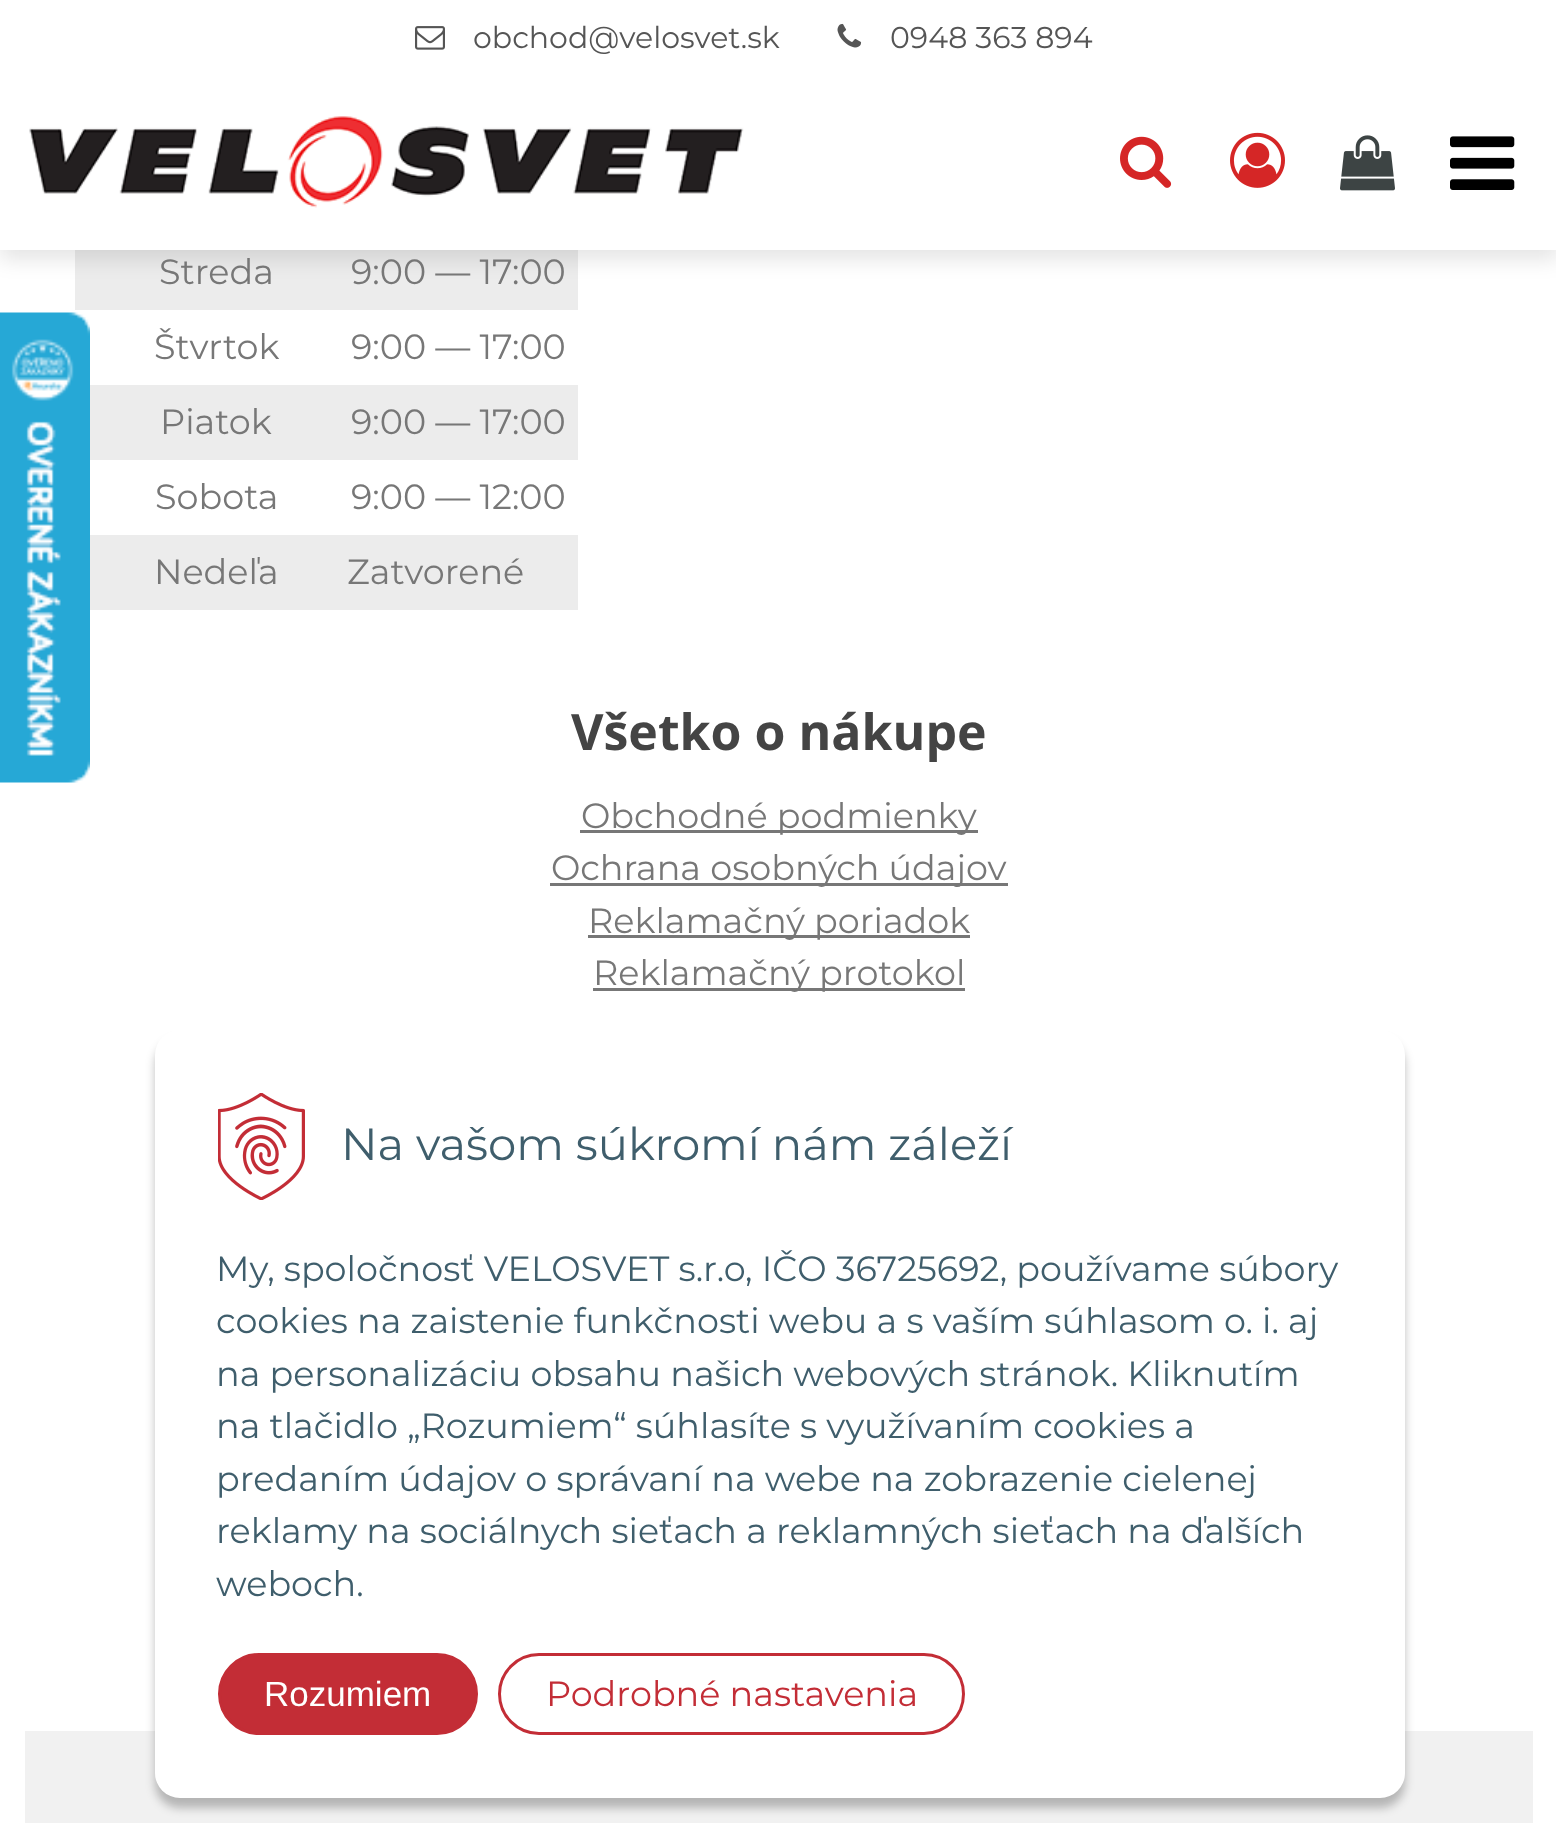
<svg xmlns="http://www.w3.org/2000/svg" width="1556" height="1846">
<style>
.a{font:30px Montserrat;fill:#555}
.b{font:35px Montserrat;fill:#777}
.c{font:bold 50px Open Sans;fill:#444}
.d{font:45px Montserrat;fill:#3f5e6c}
.e{font:35px Montserrat;fill:#3f5e6c}
.f{font:35px Liberation Sans;fill:#fff}
.g{font:35px Montserrat;fill:#c32d36}
</style>
<rect width="100%" height="100%" fill="#fff"/>
<image href="1.png" x="0" y="312" width="90" height="471"/>
<path fill="#ececec" d="M75 250h503v60H75z"/>
<path fill="#0000001a" filter="blur(10px)" d="M0 10h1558v250H0z"/>
<path fill="#fff" d="M0 0h1556v250H0z"/>
<image href="2.png" x="415" y="26" width="30" height="24"/>
<image href="3.png" x="837" y="23" width="25" height="25"/>
<image href="4.png" x="29" y="116" width="715" height="92"/>
<image href="5.png" x="1120" y="136" width="52" height="52"/>
<image href="6.png" x="1230" y="132" width="55" height="56"/>
<image href="7.png" x="1340" y="135" width="55" height="56"/>
<image href="8.png" x="1450" y="136" width="65" height="54"/>
<path fill="#ececec" d="M90 385h488v75H90z"/>
<path fill="#ececec" d="M90 535h488v75H90z"/>
<path fill="#777" d="M580 830h398v3H580z"/>
<path fill="#777" d="M550 883h458v3H550z"/>
<path fill="#777" d="M588 935h382v3H588z"/>
<path fill="#777" d="M593 988h372v3H593z"/>
<path fill="#f1f1f1" d="M25 1731h1508v92H25z"/>
<rect fill="#00000040" filter="blur(5px)" x="155" y="1040" width="1250" height="768" rx="25"/>
<rect fill="#fff" x="155" y="1030" width="1250" height="768" rx="25"/>
<image href="9.png" x="218" y="1093" width="87" height="107"/>
<rect fill="#c32d36" stroke="#c32d36" stroke-width="3" x="219.5" y="1654.5" width="257" height="79" rx="39.5"/>
<rect fill="none" stroke="#c32d36" stroke-width="3" x="499.5" y="1654.5" width="464" height="79" rx="39.5"/>
<text class="a" x="473" y="48">obchod@velosvet.sk</text>
<text class="a" x="890" y="48">0948 363 894</text>
<text class="b" x="159" y="284">Streda</text>
<text class="b" x="351" y="284">9:00 — 17:00</text>
<text class="b" x="154" y="359">Štvrtok</text>
<text class="b" x="351" y="359">9:00 — 17:00</text>
<text class="b" x="160" y="434">Piatok</text>
<text class="b" x="351" y="434">9:00 — 17:00</text>
<text class="b" x="155" y="509">Sobota</text>
<text class="b" x="351" y="509">9:00 — 12:00</text>
<text class="b" x="154" y="584">Nedeľa</text>
<text class="b" x="347" y="584">Zatvorené</text>
<text class="c" x="571" y="750">Všetko o nákupe</text>
<text class="b" x="581" y="828">Obchodné podmienky</text>
<text class="b" x="551" y="880">Ochrana osobných údajov</text>
<text class="b" x="588" y="933">Reklamačný poriadok</text>
<text class="b" x="593" y="985">Reklamačný protokol</text>
<text class="d" x="341" y="1160">Na vašom súkromí nám záleží</text>
<text class="e" x="216" y="1281">My, spoločnosť VELOSVET s.r.o, IČO 36725692, používame súbory</text>
<text class="e" x="216" y="1333">cookies na zaistenie funkčnosti webu a s vaším súhlasom o. i. aj</text>
<text class="e" x="216" y="1386">na personalizáciu obsahu našich webových stránok. Kliknutím</text>
<text class="e" x="216" y="1438">na tlačidlo „Rozumiem“ súhlasíte s využívaním cookies a</text>
<text class="e" x="216" y="1491">predaním údajov o správaní na webe na zobrazenie cielenej</text>
<text class="e" x="216" y="1543">reklamy na sociálnych sieťach a reklamných sieťach na ďalších</text>
<text class="e" x="216" y="1596">weboch.</text>
<text class="f" x="264" y="1706">Rozumiem</text>
<text class="g" x="546" y="1706">Podrobné nastavenia</text>
</svg>
